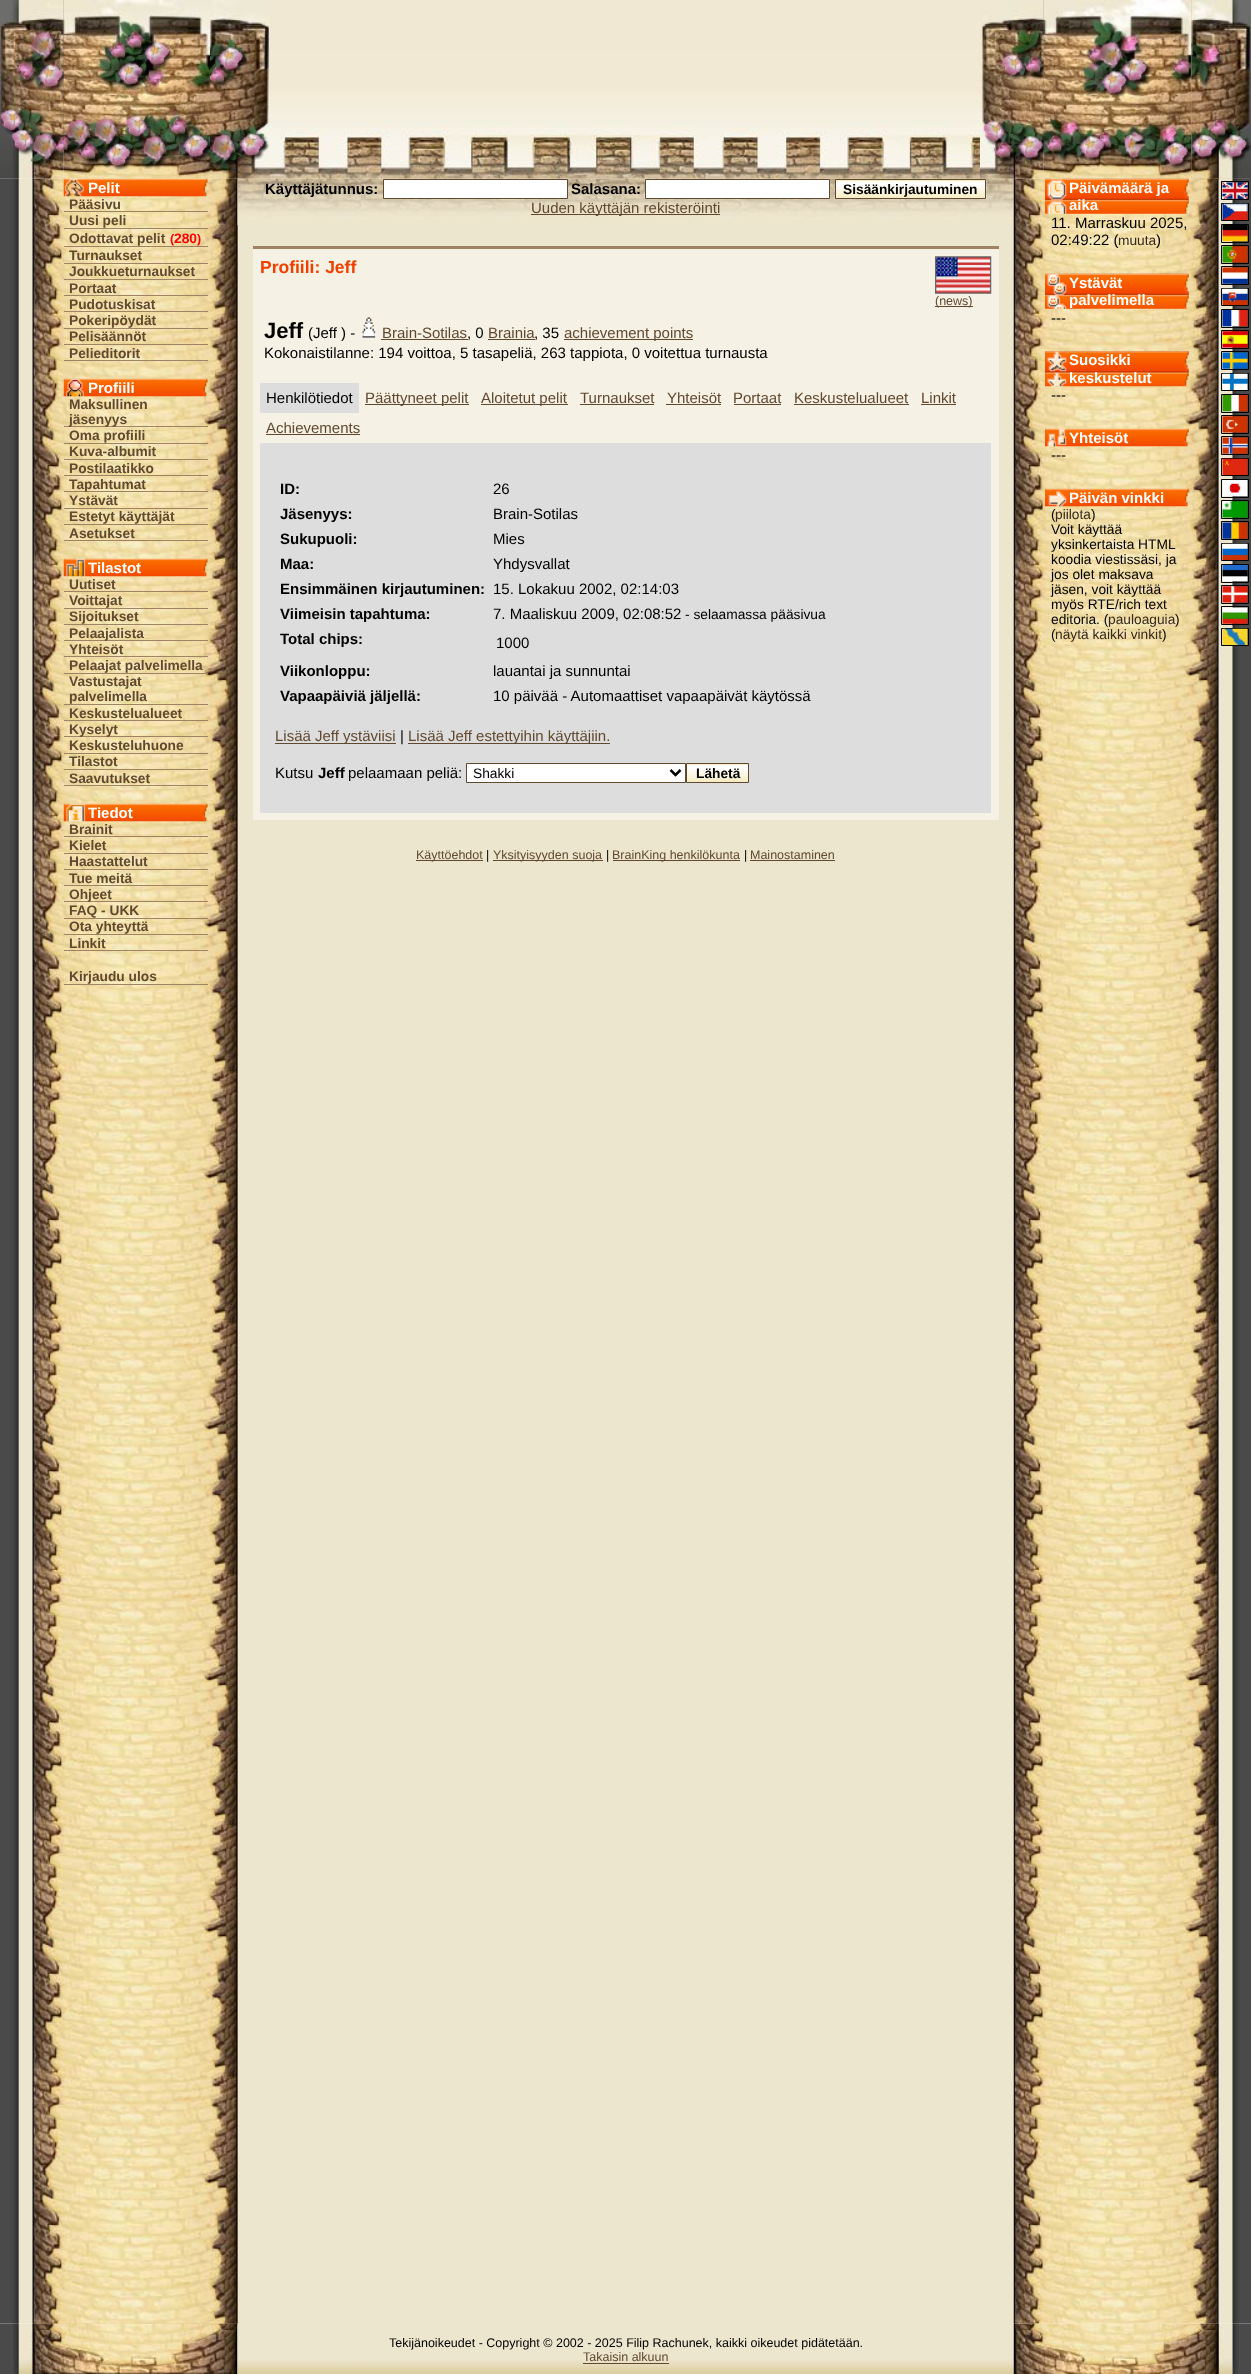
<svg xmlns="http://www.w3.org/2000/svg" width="1251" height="2374">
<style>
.a{font:bold 15px Liberation Sans;fill:#fff}
.b{font:bold 13.75px Liberation Sans;fill:#614930}
.c{font:bold 12.5px Liberation Sans;fill:#f00}
.d{font:bold 13.75px Liberation Sans;fill:#f00}
.e{font:bold 15px Liberation Sans;fill:#000}
.f{font:bold 13.75px Liberation Sans;fill:#000}
.g{font:15px Liberation Sans;fill:#614930}
.h{font:bold 17.5px Liberation Sans;fill:#ef4000}
.i{font:12.5px Liberation Sans;fill:#614930}
.j{font:bold 22px Liberation Sans;fill:#000}
.k{font:15px Liberation Sans;fill:#000}
.l{font:13.75px Liberation Sans;fill:#000}
.m{font:12.5px Liberation Sans;fill:#000}
.n{font:13.75px Liberation Sans;fill:#36281b}
</style>
<rect width="100%" height="100%" fill="#fff"/>
<image href="1.png" x="63" y="0" width="981" height="150"/>
<image href="2.png" x="0" y="0" width="64" height="179"/>
<image href="3.png" x="63" y="0" width="147" height="179"/>
<image href="4.png" x="210" y="0" width="60" height="179"/>
<image href="5.png" x="270" y="0" width="710" height="179"/>
<image href="6.png" x="980" y="0" width="64" height="179"/>
<image href="7.png" x="1043" y="0" width="148" height="179"/>
<path fill="#ddb17d" d="M1191 0h60v179H1191z"/>
<image href="8.png" x="1191" y="0" width="60" height="179"/>
<image href="9.png" x="0" y="178" width="33" height="2146"/>
<path fill="#ddb17d" d="M33 179h205v2145H33z"/>
<image href="10.png" x="32" y="178" width="206" height="2146"/>
<image href="11.png" x="63" y="178" width="145" height="19"/>
<path fill="#a08364" d="M64 211h144v1H64z"/>
<path fill="#a08364" d="M64 228h144v1H64z"/>
<path fill="#a08364" d="M64 246h144v1H64z"/>
<path fill="#a08364" d="M64 263h144v1H64z"/>
<path fill="#a08364" d="M64 279h144v1H64z"/>
<path fill="#a08364" d="M64 295h144v1H64z"/>
<path fill="#a08364" d="M64 311h144v1H64z"/>
<path fill="#a08364" d="M64 328h144v1H64z"/>
<path fill="#a08364" d="M64 344h144v1H64z"/>
<path fill="#a08364" d="M64 360h144v1H64z"/>
<image href="12.png" x="63" y="378" width="145" height="19"/>
<path fill="#a08364" d="M64 426h144v1H64z"/>
<path fill="#a08364" d="M64 443h144v1H64z"/>
<path fill="#a08364" d="M64 459h144v1H64z"/>
<path fill="#a08364" d="M64 475h144v1H64z"/>
<path fill="#a08364" d="M64 491h144v1H64z"/>
<path fill="#a08364" d="M64 508h144v1H64z"/>
<path fill="#a08364" d="M64 524h144v1H64z"/>
<path fill="#a08364" d="M64 540h144v1H64z"/>
<image href="13.png" x="63" y="558" width="145" height="19"/>
<path fill="#a08364" d="M64 591h144v1H64z"/>
<path fill="#a08364" d="M64 608h144v1H64z"/>
<path fill="#a08364" d="M64 624h144v1H64z"/>
<path fill="#a08364" d="M64 640h144v1H64z"/>
<path fill="#a08364" d="M64 656h144v1H64z"/>
<path fill="#a08364" d="M64 673h144v1H64z"/>
<path fill="#a08364" d="M64 704h144v1H64z"/>
<path fill="#a08364" d="M64 720h144v1H64z"/>
<path fill="#a08364" d="M64 736h144v1H64z"/>
<path fill="#a08364" d="M64 753h144v1H64z"/>
<path fill="#a08364" d="M64 769h144v1H64z"/>
<path fill="#a08364" d="M64 785h144v1H64z"/>
<image href="14.png" x="63" y="803" width="145" height="19"/>
<path fill="#a08364" d="M64 836h144v1H64z"/>
<path fill="#a08364" d="M64 853h144v1H64z"/>
<path fill="#a08364" d="M64 869h144v1H64z"/>
<path fill="#a08364" d="M64 885h144v1H64z"/>
<path fill="#a08364" d="M64 901h144v1H64z"/>
<path fill="#a08364" d="M64 918h144v1H64z"/>
<path fill="#a08364" d="M64 934h144v1H64z"/>
<path fill="#a08364" d="M64 950h144v1H64z"/>
<path fill="#a08364" d="M64 984h144v1H64z"/>
<path fill="#ede6ce" d="M238 179h776v2145H238z"/>
<image href="15.png" x="237" y="178" width="777" height="47"/>
<path fill="#fff" stroke="#614930" d="M383.5 179.5h184v19H383.5z"/>
<path fill="#fff" stroke="#614930" d="M645.5 179.5h184v19H645.5z"/>
<image href="16.png" x="836" y="180" width="151" height="19"/>
<path fill="none" stroke="#614930" d="M835.5 179.5h150v19H835.5z"/>
<path fill="#614930" d="M531 214h189v1H531z"/>
<path fill="#f5f1e4" d="M253 249h746v571H253z"/>
<path fill="#a08364" d="M253 246h746v3H253z"/>
<image href="17.png" x="935" y="256" width="57" height="38"/>
<path fill="#614930" d="M935 306h38v1H935z"/>
<image href="18.png" x="362" y="317" width="14" height="21"/>
<path fill="#614930" d="M381 339h87v1H381z"/>
<path fill="#614930" d="M488 339h47v1H488z"/>
<path fill="#614930" d="M564 339h129v1H564z"/>
<path fill="#ddd" d="M260 383h99v30H260z"/>
<path fill="#614930" d="M365 404h104v1H365z"/>
<path fill="#614930" d="M481 404h87v1H481z"/>
<path fill="#614930" d="M580 404h74v1H580z"/>
<path fill="#614930" d="M666 404h55v1H666z"/>
<path fill="#614930" d="M734 404h47v1H734z"/>
<path fill="#614930" d="M794 404h115v1H794z"/>
<path fill="#614930" d="M921 404h35v1H921z"/>
<path fill="#614930" d="M266 434h94v1H266z"/>
<path fill="#ddd" d="M260 443h731v370H260z"/>
<path fill="#614930" d="M275 743h121v1H275z"/>
<path fill="#614930" d="M408 743h202v1H408z"/>
<path fill="#fff" stroke="#614930" d="M466.5 763.5h219v19H466.5z"/>
<path fill="none" stroke="#000" stroke-width="2.5" d="M670.5 770l5 5l5-5"/>
<path fill="#f6ecc2" d="M687 781h61v1H687z"/>
<image href="19.png" x="687" y="764" width="61" height="17"/>
<path fill="none" stroke="#614930" d="M686.5 763.5h62v19H686.5z"/>
<path fill="#614930" d="M416 860h67v1H416z"/>
<path fill="#614930" d="M493 860h110v1H493z"/>
<path fill="#614930" d="M613 860h127v1H613z"/>
<path fill="#614930" d="M750 860h85v1H750z"/>
<image href="20.png" x="1013" y="178" width="206" height="2146"/>
<image href="21.png" x="1045" y="178" width="144" height="36"/>
<image href="22.png" x="1045" y="273" width="144" height="36"/>
<image href="23.png" x="1045" y="351" width="144" height="36"/>
<image href="24.png" x="1045" y="428" width="144" height="19"/>
<image href="25.png" x="1045" y="488" width="144" height="19"/>
<image href="26.png" x="1218" y="178" width="33" height="2146"/>
<path fill="none" stroke="#000" d="M1221.5 181.5h27v18H1221.5z"/>
<image href="27.png" x="1222" y="182" width="26" height="17"/>
<path fill="none" stroke="#000" d="M1221.5 203.5h27v17H1221.5z"/>
<image href="28.png" x="1222" y="203" width="26" height="17"/>
<path fill="none" stroke="#000" d="M1221.5 224.5h27v18H1221.5z"/>
<image href="29.png" x="1222" y="225" width="26" height="17"/>
<path fill="none" stroke="#000" d="M1221.5 245.5h27v18H1221.5z"/>
<image href="30.png" x="1222" y="246" width="26" height="17"/>
<path fill="none" stroke="#000" d="M1221.5 266.5h27v18H1221.5z"/>
<image href="31.png" x="1222" y="267" width="26" height="17"/>
<path fill="none" stroke="#000" d="M1221.5 288.5h27v17H1221.5z"/>
<image href="32.png" x="1222" y="288" width="26" height="17"/>
<path fill="none" stroke="#000" d="M1221.5 309.5h27v18H1221.5z"/>
<image href="33.png" x="1222" y="310" width="26" height="17"/>
<path fill="none" stroke="#000" d="M1221.5 330.5h27v18H1221.5z"/>
<image href="34.png" x="1222" y="331" width="26" height="17"/>
<path fill="none" stroke="#000" d="M1221.5 351.5h27v18H1221.5z"/>
<image href="35.png" x="1222" y="352" width="26" height="17"/>
<path fill="none" stroke="#000" d="M1221.5 373.5h27v17H1221.5z"/>
<image href="36.png" x="1222" y="373" width="26" height="17"/>
<path fill="none" stroke="#000" d="M1221.5 394.5h27v18H1221.5z"/>
<image href="37.png" x="1222" y="395" width="26" height="17"/>
<path fill="none" stroke="#000" d="M1221.5 415.5h27v18H1221.5z"/>
<image href="38.png" x="1222" y="416" width="26" height="17"/>
<path fill="none" stroke="#000" d="M1221.5 436.5h27v18H1221.5z"/>
<image href="39.png" x="1222" y="437" width="26" height="17"/>
<path fill="none" stroke="#000" d="M1221.5 458.5h27v17H1221.5z"/>
<image href="40.png" x="1222" y="458" width="26" height="17"/>
<path fill="none" stroke="#000" d="M1221.5 479.5h27v18H1221.5z"/>
<image href="41.png" x="1222" y="480" width="26" height="17"/>
<path fill="none" stroke="#000" d="M1221.5 500.5h27v18H1221.5z"/>
<image href="42.png" x="1222" y="501" width="26" height="17"/>
<path fill="none" stroke="#000" d="M1221.5 521.5h27v18H1221.5z"/>
<image href="43.png" x="1222" y="522" width="26" height="17"/>
<path fill="none" stroke="#000" d="M1221.5 543.5h27v17H1221.5z"/>
<image href="44.png" x="1222" y="543" width="26" height="17"/>
<path fill="none" stroke="#000" d="M1221.5 564.5h27v18H1221.5z"/>
<image href="45.png" x="1222" y="565" width="26" height="17"/>
<path fill="none" stroke="#000" d="M1221.5 585.5h27v18H1221.5z"/>
<image href="46.png" x="1222" y="586" width="26" height="17"/>
<path fill="none" stroke="#000" d="M1221.5 606.5h27v18H1221.5z"/>
<image href="47.png" x="1222" y="607" width="26" height="17"/>
<path fill="none" stroke="#000" d="M1221.5 628.5h27v17H1221.5z"/>
<image href="48.png" x="1222" y="628" width="26" height="17"/>
<path fill="#4a4a4a" d="M0 2324h19v50H0z"/>
<image href="49.png" x="13" y="2323" width="6" height="51"/>
<image href="50.png" x="18" y="2323" width="220" height="51"/>
<image href="51.png" x="237" y="2323" width="777" height="51"/>
<path fill="#614930" d="M583 2363h86v1H583z"/>
<image href="52.png" x="1013" y="2323" width="220" height="51"/>
<path fill="#4a4a4a" d="M1239 2324h12v50H1239z"/>
<image href="53.png" x="1232" y="2323" width="7" height="51"/>
<text class="a" x="88" y="193">Pelit</text>
<text class="b" x="69" y="209">Pääsivu</text>
<text class="b" x="69" y="225">Uusi peli</text>
<text class="b" x="69" y="243">Odottavat pelit</text>
<text class="c" x="170" y="243">(</text>
<text class="d" x="174" y="243">280</text>
<text class="c" x="197" y="243">)</text>
<text class="b" x="69" y="260">Turnaukset</text>
<text class="b" x="69" y="276">Joukkueturnaukset</text>
<text class="b" x="69" y="293">Portaat</text>
<text class="b" x="69" y="309">Pudotuskisat</text>
<text class="b" x="69" y="325">Pokeripöydät</text>
<text class="b" x="69" y="341">Pelisäännöt</text>
<text class="b" x="69" y="358">Pelieditorit</text>
<text class="a" x="88" y="393">Profiili</text>
<text class="b" x="69" y="409">Maksullinen</text>
<text class="b" x="69" y="424">jäsenyys</text>
<text class="b" x="69" y="440">Oma profiili</text>
<text class="b" x="69" y="456">Kuva-albumit</text>
<text class="b" x="69" y="473">Postilaatikko</text>
<text class="b" x="69" y="489">Tapahtumat</text>
<text class="b" x="69" y="505">Ystävät</text>
<text class="b" x="69" y="521">Estetyt käyttäjät</text>
<text class="b" x="69" y="538">Asetukset</text>
<text class="a" x="88" y="573">Tilastot</text>
<text class="b" x="69" y="589">Uutiset</text>
<text class="b" x="69" y="605">Voittajat</text>
<text class="b" x="69" y="621">Sijoitukset</text>
<text class="b" x="69" y="638">Pelaajalista</text>
<text class="b" x="69" y="654">Yhteisöt</text>
<text class="b" x="69" y="670">Pelaajat palvelimella</text>
<text class="b" x="69" y="686">Vastustajat</text>
<text class="b" x="69" y="701">palvelimella</text>
<text class="b" x="69" y="718">Keskustelualueet</text>
<text class="b" x="69" y="734">Kyselyt</text>
<text class="b" x="69" y="750">Keskusteluhuone</text>
<text class="b" x="69" y="766">Tilastot</text>
<text class="b" x="69" y="783">Saavutukset</text>
<text class="a" x="88" y="818">Tiedot</text>
<text class="b" x="69" y="834">Brainit</text>
<text class="b" x="69" y="850">Kielet</text>
<text class="b" x="69" y="866">Haastattelut</text>
<text class="b" x="69" y="883">Tue meitä</text>
<text class="b" x="69" y="899">Ohjeet</text>
<text class="b" x="69" y="915">FAQ - UKK</text>
<text class="b" x="69" y="931">Ota yhteyttä</text>
<text class="b" x="69" y="948">Linkit</text>
<text class="b" x="69" y="981">Kirjaudu ulos</text>
<text class="e" x="265" y="194">Käyttäjätunnus:</text>
<text class="e" x="571" y="194">Salasana:</text>
<text class="f" x="843" y="194">Sisäänkirjautuminen</text>
<text class="g" x="531" y="213">Uuden käyttäjän rekisteröinti</text>
<text class="h" x="260" y="273">Profiili: Jeff</text>
<text class="i" x="935" y="305">(news)</text>
<text class="j" x="264" y="338">Jeff</text>
<text class="k" x="308" y="338">(Jeff ) -</text>
<text class="g" x="382" y="338">Brain-Sotilas</text>
<text class="k" x="467" y="338">, 0</text>
<text class="g" x="488" y="338">Brainia</text>
<text class="k" x="534" y="338">, 35</text>
<text class="g" x="564" y="338">achievement points</text>
<text class="k" x="264" y="358">Kokonaistilanne: 194 voittoa, 5 tasapeliä, 263 tappiota, 0 voitettua turnausta</text>
<text class="k" x="266" y="403">Henkilötiedot</text>
<text class="g" x="365" y="403">Päättyneet pelit</text>
<text class="g" x="481" y="403">Aloitetut pelit</text>
<text class="g" x="580" y="403">Turnaukset</text>
<text class="g" x="667" y="403">Yhteisöt</text>
<text class="g" x="733" y="403">Portaat</text>
<text class="g" x="794" y="403">Keskustelualueet</text>
<text class="g" x="921" y="403">Linkit</text>
<text class="g" x="266" y="433">Achievements</text>
<text class="e" x="280" y="494">ID:</text>
<text class="k" x="493" y="494">26</text>
<text class="e" x="280" y="519">Jäsenyys:</text>
<text class="k" x="493" y="519">Brain-Sotilas</text>
<text class="e" x="280" y="544">Sukupuoli:</text>
<text class="k" x="493" y="544">Mies</text>
<text class="e" x="280" y="569">Maa:</text>
<text class="k" x="493" y="569">Yhdysvallat</text>
<text class="e" x="280" y="594">Ensimmäinen kirjautuminen:</text>
<text class="k" x="493" y="594">15. Lokakuu 2002, 02:14:03</text>
<text class="e" x="280" y="619">Viimeisin tapahtuma:</text>
<text class="k" x="493" y="619">7. Maaliskuu 2009, 02:08:52</text>
<text class="l" x="685" y="619">- selaamassa pääsivua</text>
<text class="e" x="280" y="644">Total chips:</text>
<text class="k" x="496" y="648">1000</text>
<text class="e" x="280" y="676">Viikonloppu:</text>
<text class="k" x="493" y="676">lauantai ja sunnuntai</text>
<text class="e" x="280" y="701">Vapaapäiviä jäljellä:</text>
<text class="k" x="493" y="701">10 päivää - Automaattiset vapaapäivät käytössä</text>
<text class="g" x="275" y="741">Lisää Jeff ystäviisi</text>
<text class="k" x="400" y="741">|</text>
<text class="g" x="408" y="741">Lisää Jeff estettyihin käyttäjiin.</text>
<text class="k" x="275" y="778">Kutsu</text>
<text class="e" x="318" y="778">Jeff</text>
<text class="k" x="348" y="778">pelaamaan peliä:</text>
<text class="l" x="473" y="778">Shakki</text>
<text class="f" x="696" y="778">Lähetä</text>
<text class="i" x="416" y="859">Käyttöehdot</text>
<text class="m" x="486" y="859">|</text>
<text class="i" x="493" y="859">Yksityisyyden suoja</text>
<text class="m" x="606" y="859">|</text>
<text class="i" x="612" y="859">BrainKing henkilökunta</text>
<text class="m" x="744" y="859">|</text>
<text class="i" x="750" y="859">Mainostaminen</text>
<text class="a" x="1069" y="193">Päivämäärä ja</text>
<text class="a" x="1069" y="210">aika</text>
<text class="k" x="1051" y="228">11. Marraskuu 2025,</text>
<text class="k" x="1051" y="245">02:49:22 (</text>
<text class="n" x="1118" y="245">muuta</text>
<text class="k" x="1156" y="245">)</text>
<text class="a" x="1069" y="288">Ystävät</text>
<text class="a" x="1069" y="305">palvelimella</text>
<text class="k" x="1051" y="323">---</text>
<text class="a" x="1069" y="365">Suosikki</text>
<text class="a" x="1069" y="383">keskustelut</text>
<text class="k" x="1051" y="400">---</text>
<text class="a" x="1069" y="443">Yhteisöt</text>
<text class="k" x="1051" y="460">---</text>
<text class="a" x="1069" y="503">Päivän vinkki</text>
<text class="l" x="1051" y="519">(</text>
<text class="n" x="1055" y="519">piilota</text>
<text class="l" x="1091" y="519">)</text>
<text class="l" x="1051" y="534">Voit käyttää</text>
<text class="l" x="1051" y="549">yksinkertaista HTML</text>
<text class="l" x="1051" y="564">koodia viestissäsi, ja</text>
<text class="l" x="1051" y="579">jos olet maksava</text>
<text class="l" x="1051" y="594">jäsen, voit käyttää</text>
<text class="l" x="1051" y="609">myös RTE/rich text</text>
<text class="l" x="1051" y="624">editoria. (</text>
<text class="n" x="1108" y="624">pauloaguia</text>
<text class="l" x="1175" y="624">)</text>
<text class="l" x="1051" y="639">(</text>
<text class="n" x="1055" y="639">näytä kaikki vinkit</text>
<text class="l" x="1162" y="639">)</text>
<text class="m" x="389" y="2347">Tekijänoikeudet - Copyright © 2002 - 2025 Filip Rachunek, kaikki oikeudet pidätetään.</text>
<text class="i" x="583" y="2361">Takaisin alkuun</text>
</svg>
